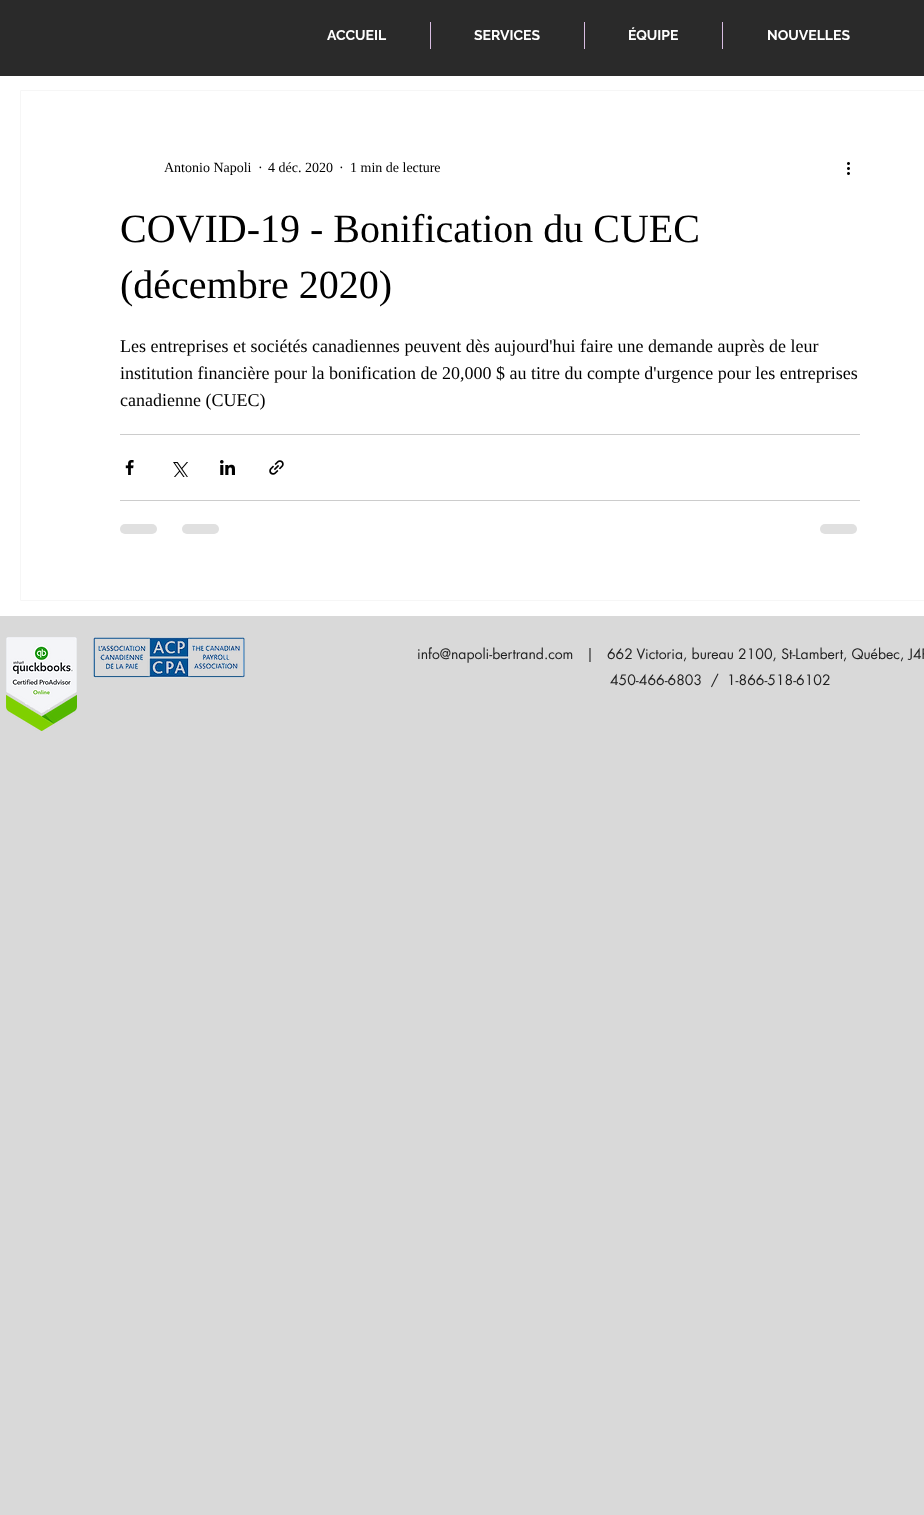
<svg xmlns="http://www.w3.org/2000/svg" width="924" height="1515">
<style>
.a{font:bold 14px Raleway;fill:#fff}
.b{font:14px Liberation Serif;fill:#000}
.c{font:40px Liberation Serif;fill:#000}
.d{font:18px Liberation Serif;fill:#000}
.e{font:14px futura;fill:#212121}
</style>
<rect width="100%" height="100%" fill="#d9d9d9"/>
<path fill="#2a2a2a" d="M0 0h924v76H0z"/>
<path fill="#d8bde2" d="M430 22h1v27H430z"/>
<path fill="#d8bde2" d="M584 22h1v27H584z"/>
<path fill="#d8bde2" d="M722 22h1v27H722z"/>
<path fill="#fff" d="M0 76h924v540H0z"/>
<path fill="none" stroke="#f6f6f6" d="M20.5 90.5h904v510H20.5z"/>
<image href="1.png" x="847" y="162" width="3" height="13"/>
<path fill="#ccc" d="M120 434h740v1H120z"/>
<image href="2.png" x="125" y="460" width="9" height="15"/>
<image href="3.png" x="173" y="462" width="15" height="15"/>
<image href="4.png" x="220" y="460" width="15" height="15"/>
<image href="5.png" x="269" y="460" width="15" height="15"/>
<path fill="#ccc" d="M120 500h740v1H120z"/>
<rect fill="#e0e0e0" x="120" y="524" width="37" height="10" rx="5"/>
<rect fill="#e0e0e0" x="182" y="524" width="37" height="10" rx="5"/>
<rect fill="#e0e0e0" x="820" y="524" width="37" height="10" rx="5"/>
<image href="6.png" x="6" y="637" width="71" height="94"/>
<image href="7.png" x="93" y="637" width="152" height="41"/>
<text class="a" x="327" y="40">ACCUEIL</text>
<text class="a" x="474" y="40">SERVICES</text>
<text class="a" x="628" y="40">ÉQUIPE</text>
<text class="a" x="767" y="40">NOUVELLES</text>
<text class="b" x="164" y="172">Antonio Napoli</text>
<text class="b" x="258" y="172">·</text>
<text class="b" x="268" y="172">4 déc. 2020</text>
<text class="b" x="339" y="172">·</text>
<text class="b" x="350" y="172">1 min de lecture</text>
<text class="c" x="120" y="242">COVID-19 - Bonification du CUEC</text>
<text class="c" x="120" y="298">(décembre 2020)</text>
<text class="d" x="120" y="352">Les entreprises et sociétés canadiennes peuvent dès aujourd'hui faire une demande auprès de leur</text>
<text class="d" x="120" y="379">institution financière pour la bonification de 20,000 $ au titre du compte d'urgence pour les entreprises</text>
<text class="d" x="120" y="406">canadienne (CUEC)</text>
<text class="e" x="417" y="659">info@napoli-bertrand.com</text>
<text class="e" xml:space="preserve" x="586" y="659">|   662 Victoria, bureau 2100, St-Lambert, Québec, J4P</text>
<text class="e" xml:space="preserve" x="610" y="685">450-466-6803  /</text>
<text class="e" x="727" y="685">1-866-518-6102</text>
</svg>
